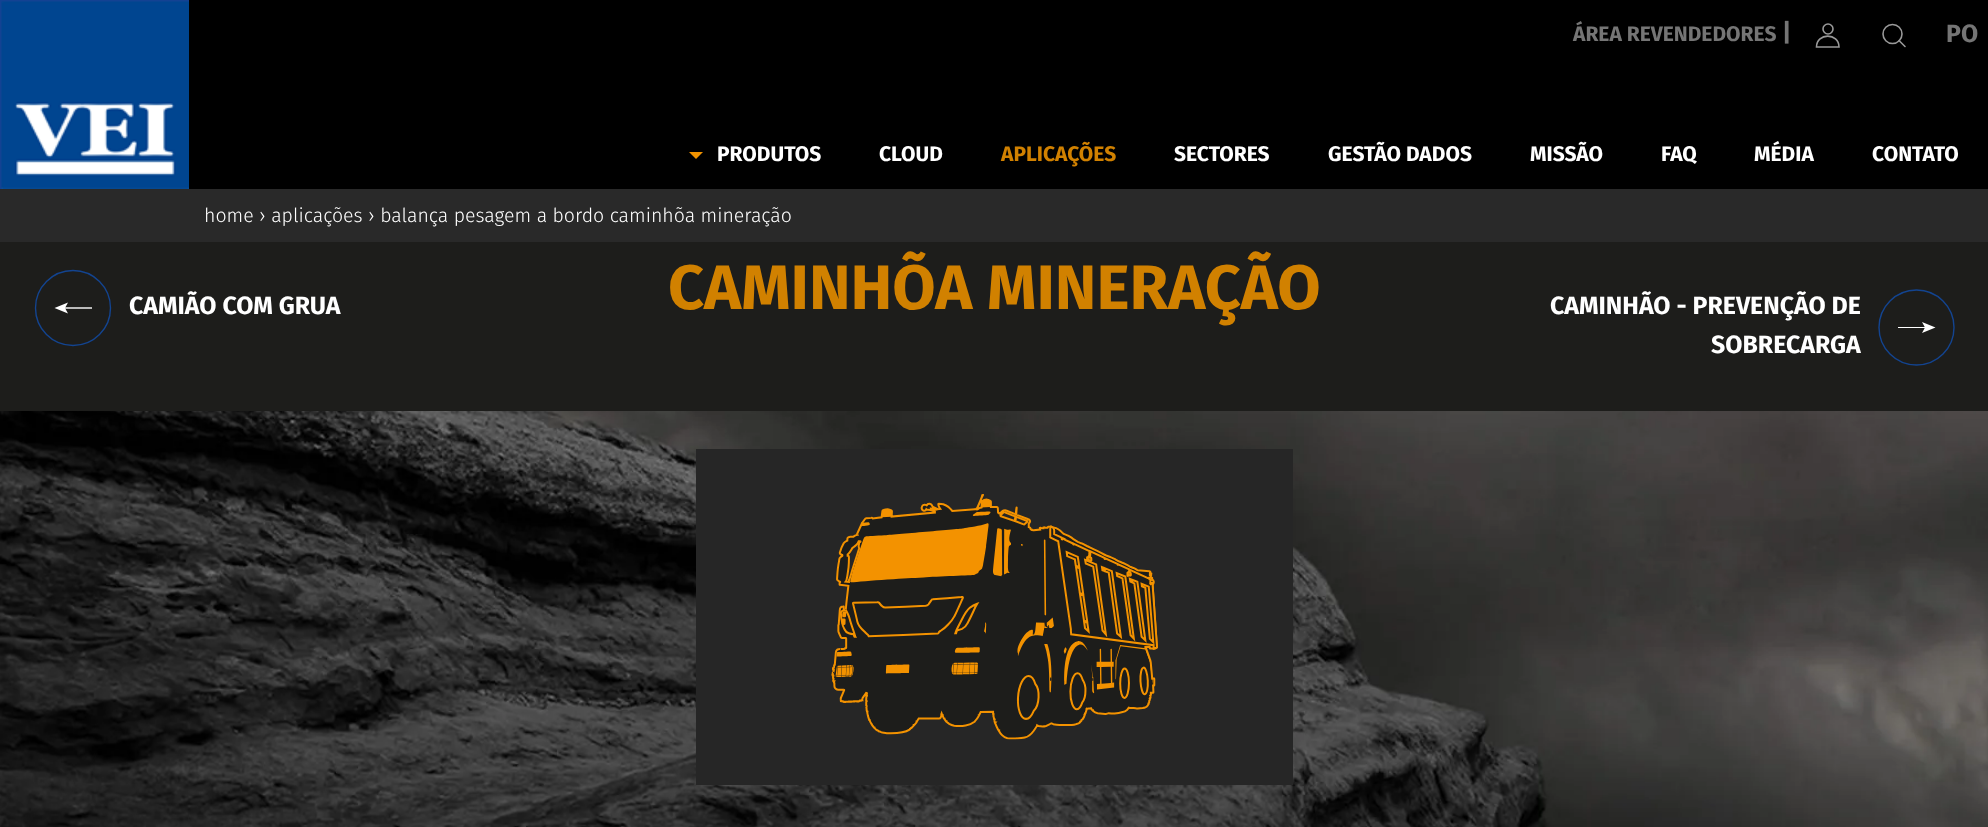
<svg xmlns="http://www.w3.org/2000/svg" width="1988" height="827">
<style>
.a{font:bold 21px Fira Sans;fill:#757575}
.b{font:bold 24.9px Fira Sans;fill:#757575}
.c{font:bold 21px Fira Sans;fill:#fff}
.d{font:bold 21px Fira Sans;fill:#d18100}
.e{font:300 19.5px Fira Sans;fill:#fff}
.f{font:bold 24.9px Fira Sans;fill:#fff}
.g{font:bold 62.8px Fira Sans;fill:#d18100}
</style>
<rect width="100%" height="100%" fill="#000"/>
<path fill="#134293" d="M0 0h189v189H0z"/>
<image href="1.png" x="1" y="1" width="188" height="188"/>
<circle fill="none" stroke="#999" stroke-width="1.6" cx="1828" cy="29" r="5"/>
<path fill="none" stroke="#999" stroke-width="1.6" d="M1839 47c0-14.5-22.5-14.5-22.5 0z"/>
<circle fill="none" stroke="#999" stroke-width="1.6" cx="1892.5" cy="34" r="9.5"/>
<path fill="none" stroke="#999" stroke-width="1.6" stroke-linecap="round" d="M1899 40.5l6 6"/>
<path fill="#f19300" d="M703 152l-7 7l-7-7"/>
<path fill="#292929" d="M0 189h1988v53H0z"/>
<path fill="#1d1d1b" d="M0 242h1988v169H0z"/>
<circle fill="none" stroke="#134490" stroke-width="1.4" cx="73" cy="308" r="37.5"/>
<path fill="none" stroke="#fff" stroke-width="1.4" d="M92 308h-28"/>
<path fill="#fff" d="M54.5 308l13.5-5.5l-3 5.5l3 5.5z"/>
<circle fill="none" stroke="#134490" stroke-width="1.4" cx="1916.5" cy="327.5" r="37.5"/>
<path fill="#fff" d="M1898 327h28v1H1898z"/>
<path fill="#fff" d="M1922 333l3-5.5l-3-5.5l13.5 5.5z"/>
<image href="2.png" x="0" y="411" width="1988" height="416"/>
<path fill="#262626" d="M696 449h597v336H696z"/>
<image href="3.png" x="831" y="494" width="327" height="246"/>
<text class="a" x="1573" y="41">ÁREA REVENDEDORES</text>
<text class="b" x="1782" y="41">|</text>
<text class="b" x="1946" y="42">PO</text>
<text class="c" x="717" y="161">PRODUTOS</text>
<text class="c" x="879" y="161">CLOUD</text>
<text class="d" x="1001" y="161">APLICAÇÕES</text>
<text class="c" x="1174" y="161">SECTORES</text>
<text class="c" x="1328" y="161">GESTÃO DADOS</text>
<text class="c" x="1530" y="161">MISSÃO</text>
<text class="c" x="1661" y="161">FAQ</text>
<text class="c" x="1754" y="161">MÉDIA</text>
<text class="c" x="1872" y="161">CONTATO</text>
<text class="e" x="204" y="222">home › aplicações › balança pesagem a bordo caminhõa mineração</text>
<text class="f" x="129" y="314">CAMIÃO COM GRUA</text>
<text class="g" x="668" y="309">CAMINHÕA MINERAÇÃO</text>
<text class="f" x="1550" y="314">CAMINHÃO - PREVENÇÃO DE</text>
<text class="f" x="1711" y="353">SOBRECARGA</text>
</svg>
